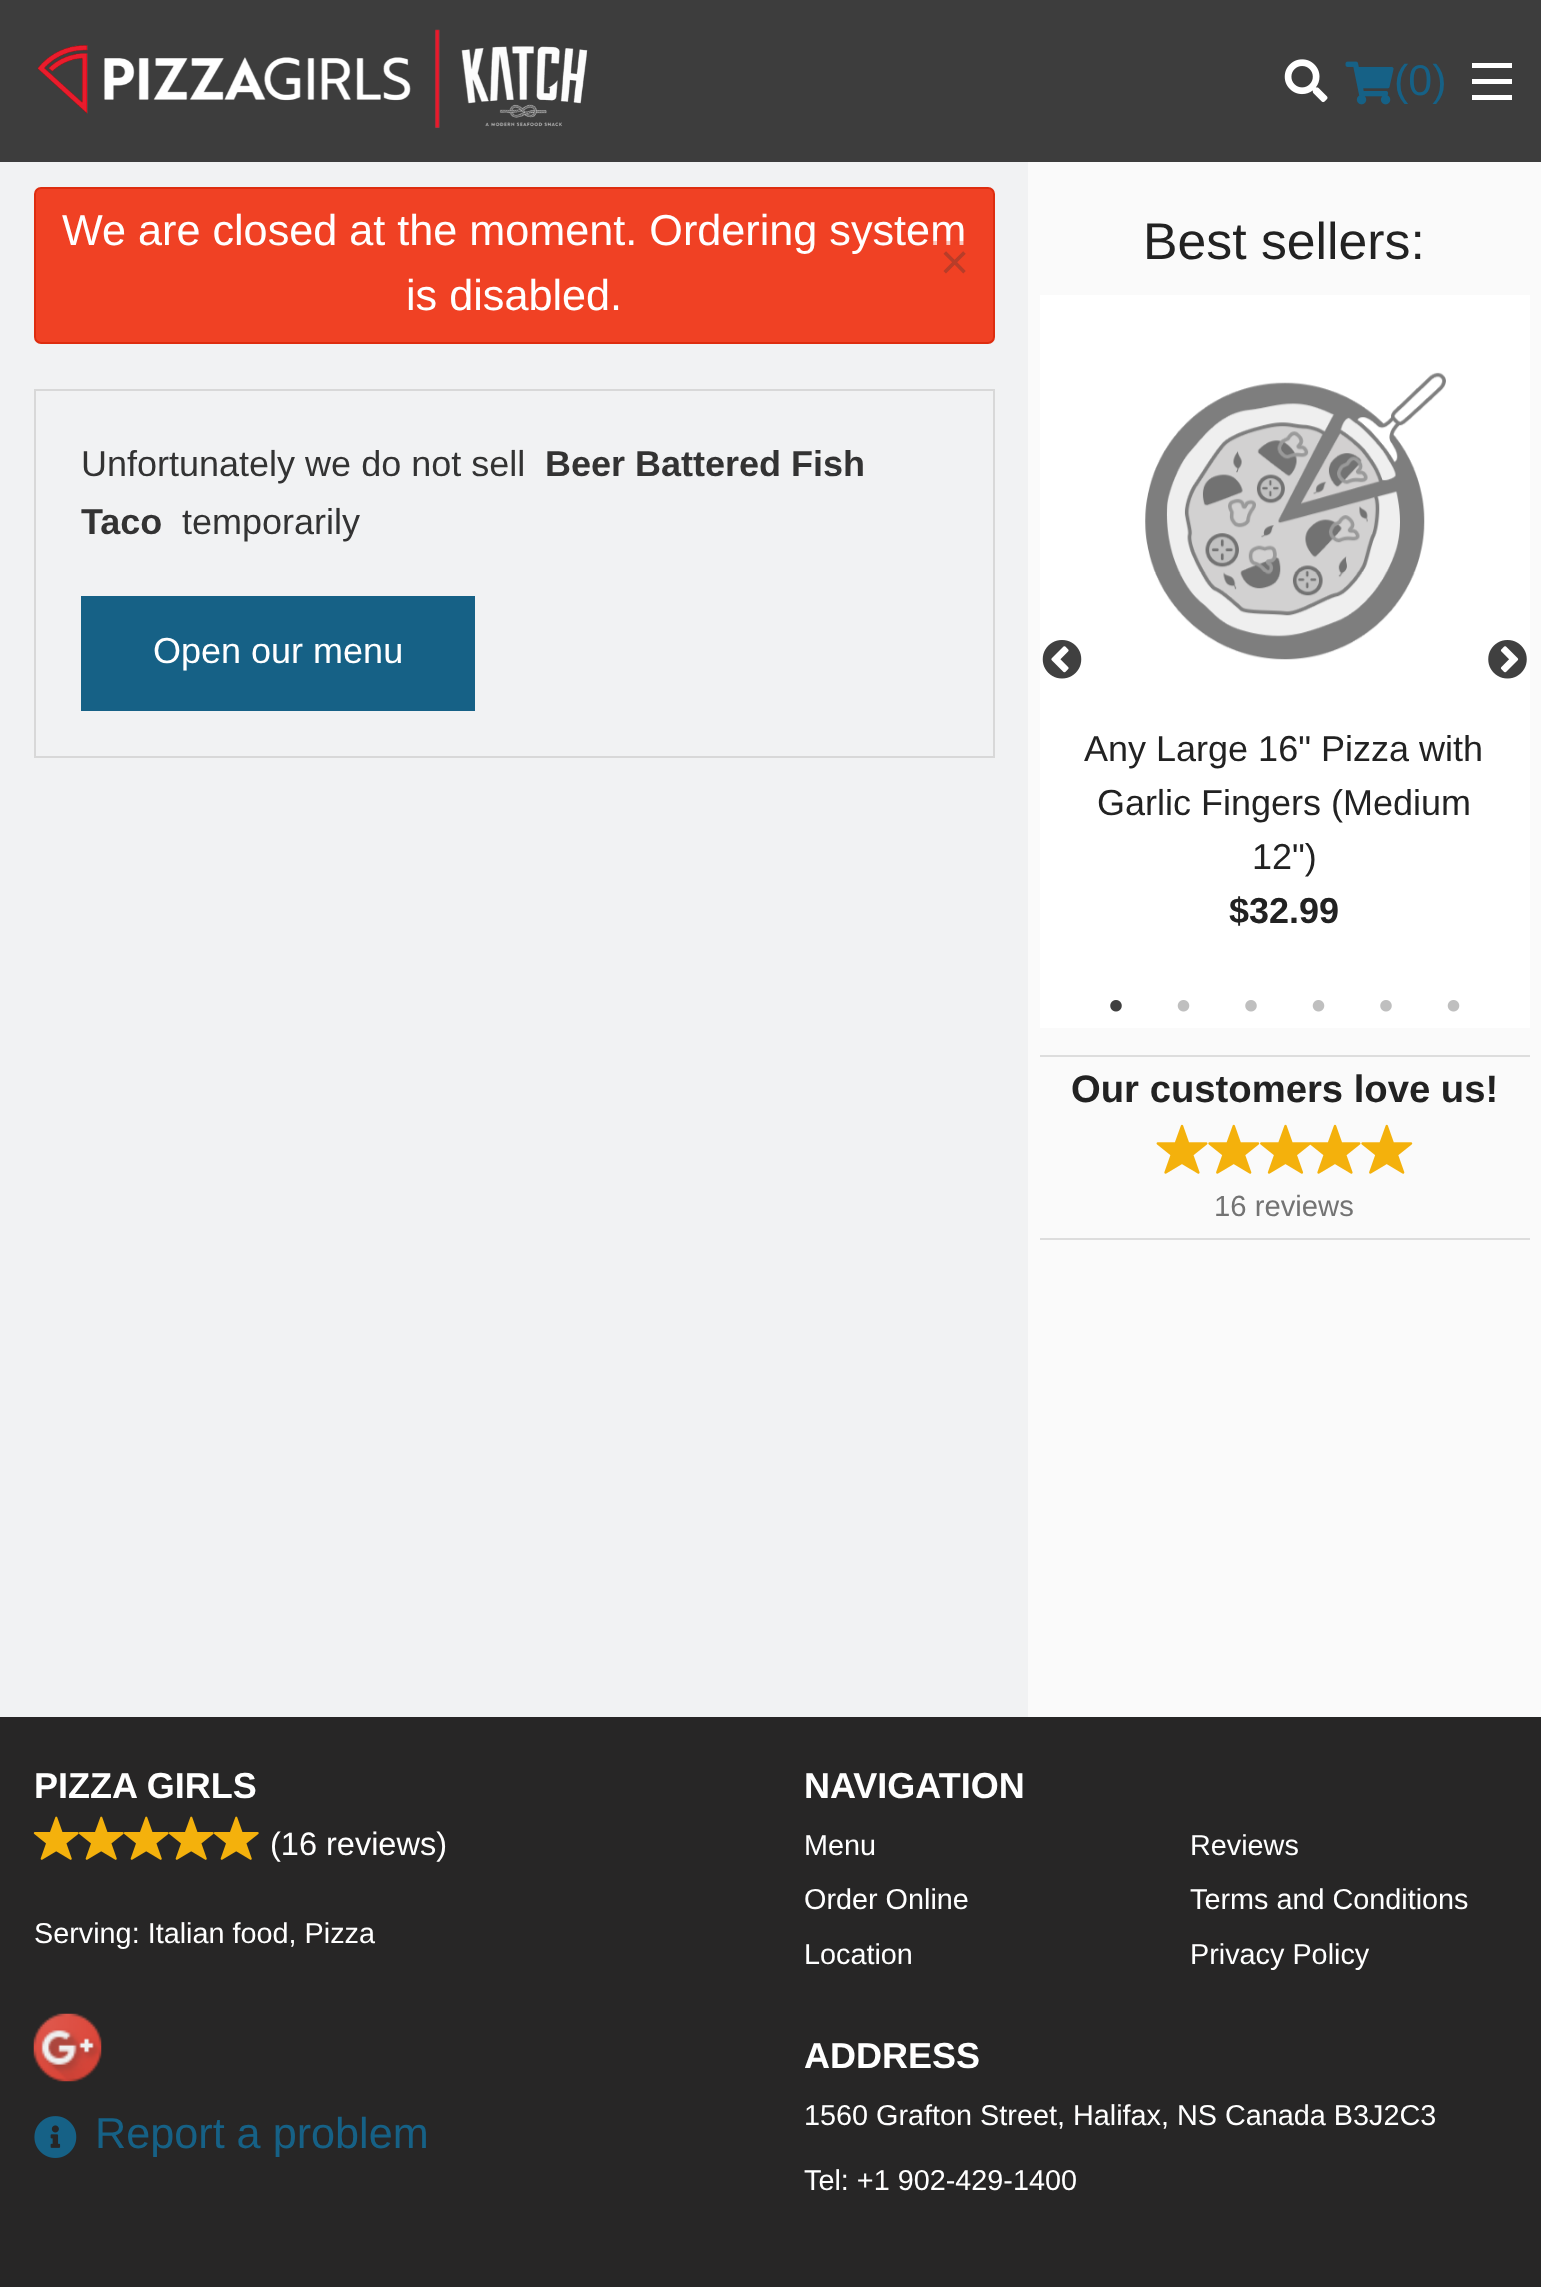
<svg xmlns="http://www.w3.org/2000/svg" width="1541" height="2287">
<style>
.a{font:43px Liberation Sans;fill:#166186}
.b{font:43.2px Liberation Sans;fill:#fff}
.c{font:50px Liberation Sans;fill:#b73d29}
.d{font:36px Liberation Sans;fill:#333}
.e{font:bold 36px Liberation Sans;fill:#333}
.f{font:36px Liberation Sans;fill:#fff}
.g{font:51.75px Liberation Sans;fill:#222}
.h{font:36px Liberation Sans;fill:#222}
.i{font:bold 36px Liberation Sans;fill:#222}
.j{font:bold 38.25px Liberation Sans;fill:#222}
.k{font:29.25px Liberation Sans;fill:#737373}
.l{font:bold 36px Liberation Sans;fill:#fff}
.m{font:32.5px Liberation Sans;fill:#fff}
.n{font:28.8px Liberation Sans;fill:#fff}
.o{font:43.2px Liberation Sans;fill:#166186}
</style>
<rect width="100%" height="100%" fill="#f1f2f3"/>
<path fill="#3d3d3d" d="M0 0h1541v162H0z"/>
<image href="1.png" x="37" y="29" width="551" height="99"/>
<image href="2.png" x="1284" y="59" width="44" height="44"/>
<image href="3.png" x="1345" y="61" width="49" height="44"/>
<path fill="#fff" d="M1472 95h40v5H1472z"/>
<path fill="#fff" d="M1472 79h40v5H1472z"/>
<path fill="#fff" d="M1472 63h40v5H1472z"/>
<rect fill="#f04124" stroke="#de2d0f" stroke-width="2" x="35" y="188" width="959" height="155" rx="6"/>
<path fill="none" stroke="#d8d8d8" stroke-width="2" d="M35 390h959v367H35z"/>
<path fill="#166186" d="M81 596h394v115H81z"/>
<path fill="#fafafa" d="M1028 162h513v1555H1028z"/>
<path fill="#fff" d="M1040 295h490v733H1040z"/>
<image href="4.png" x="1042" y="640" width="40" height="39"/>
<image href="5.png" x="1488" y="640" width="39" height="39"/>
<image href="6.png" x="1145" y="372" width="301" height="288"/>
<image href="7.png" x="1110" y="1000" width="12" height="12"/>
<image href="8.png" x="1177" y="1000" width="13" height="12"/>
<image href="9.png" x="1245" y="1000" width="12" height="12"/>
<image href="8.png" x="1312" y="1000" width="13" height="12"/>
<image href="9.png" x="1380" y="1000" width="12" height="12"/>
<image href="8.png" x="1447" y="1000" width="13" height="12"/>
<path fill="#ddd" d="M1040 1055h490v2H1040z"/>
<image href="10.png" x="1156" y="1124" width="52" height="50"/>
<image href="11.png" x="1208" y="1124" width="52" height="50"/>
<image href="12.png" x="1260" y="1124" width="51" height="50"/>
<image href="13.png" x="1309" y="1124" width="52" height="50"/>
<image href="11.png" x="1361" y="1124" width="52" height="50"/>
<path fill="#ddd" d="M1040 1238h490v2H1040z"/>
<path fill="#272626" d="M0 1717h1541v570H0z"/>
<image href="14.png" x="33" y="1816" width="46" height="44"/>
<image href="15.png" x="78" y="1816" width="46" height="44"/>
<image href="15.png" x="123" y="1816" width="46" height="44"/>
<image href="15.png" x="168" y="1816" width="46" height="44"/>
<image href="15.png" x="213" y="1816" width="46" height="44"/>
<image href="16.png" x="33" y="2013" width="69" height="69"/>
<image href="17.png" x="34" y="2116" width="43" height="42"/>
<text class="a" x="1394" y="95">(0)</text>
<text class="b" x="62" y="245">We are closed at the moment. Ordering system</text>
<path fill="#f041244d" d="M927 241h37v4H927z"/>
<text class="c" x="940" y="279">×</text>
<text class="b" x="406" y="310">is disabled.</text>
<text class="d" x="81" y="476">Unfortunately we do not sell</text>
<text class="e" x="545" y="476">Beer Battered Fish</text>
<text class="e" x="81" y="534">Taco</text>
<text class="d" x="182" y="534">temporarily</text>
<text class="f" x="153" y="663">Open our menu</text>
<text class="g" x="1143" y="259">Best sellers:</text>
<text class="h" x="1084" y="761">Any Large 16" Pizza with</text>
<text class="h" x="1097" y="815">Garlic Fingers (Medium</text>
<text class="h" x="1252" y="869">12")</text>
<text class="i" x="1229" y="923">$32.99</text>
<text class="j" x="1071" y="1102">Our customers love us!</text>
<text class="k" x="1214" y="1216">16 reviews</text>
<text class="l" x="34" y="1798">PIZZA GIRLS</text>
<text class="m" x="270" y="1855">(16 reviews)</text>
<text class="n" x="34" y="1943">Serving: Italian food, Pizza</text>
<text class="o" x="95" y="2148">Report a problem</text>
<text class="l" x="804" y="1798">NAVIGATION</text>
<text class="n" x="804" y="1855">Menu</text>
<text class="n" x="804" y="1909">Order Online</text>
<text class="n" x="804" y="1964">Location</text>
<text class="n" x="1190" y="1855">Reviews</text>
<text class="n" x="1190" y="1909">Terms and Conditions</text>
<text class="n" x="1190" y="1964">Privacy Policy</text>
<text class="l" x="804" y="2068">ADDRESS</text>
<text class="n" x="804" y="2125">1560 Grafton Street, Halifax, NS Canada B3J2C3</text>
<text class="n" x="804" y="2190">Tel: +1 902-429-1400</text>
</svg>
